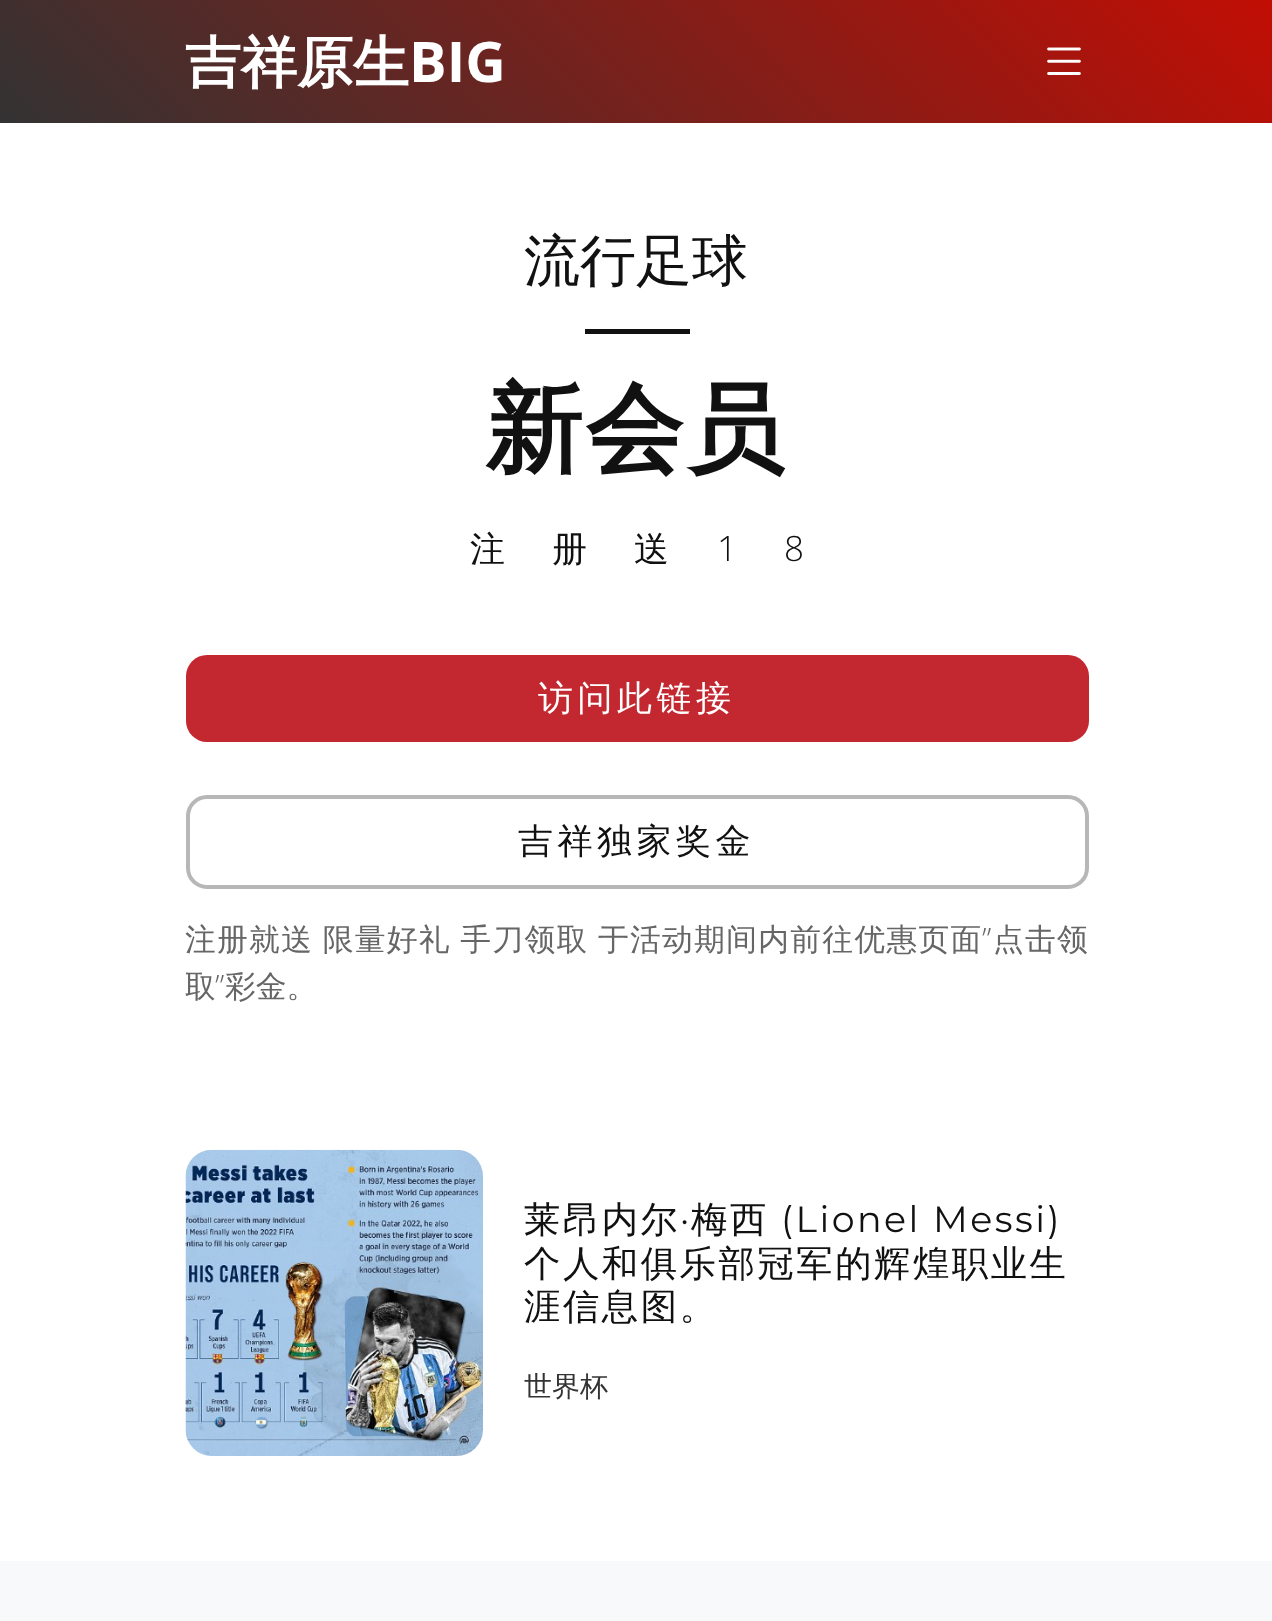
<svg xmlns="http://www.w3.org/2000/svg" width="1272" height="1621">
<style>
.a{font:bold 56px WenQuanYi Zen Hei;fill:#fff}
.b{font:bold 56px Open Sans;fill:#fff}
.c{font:500 56px WenQuanYi Zen Hei;fill:#111}
.d{font:bold 98px WenQuanYi Zen Hei;letter-spacing:2.5px;fill:#111}
.e{font:500 35px WenQuanYi Zen Hei;letter-spacing:47px;fill:#111}
.f{font:300 35px Open Sans;letter-spacing:47px;fill:#111}
.g{font:500 35px WenQuanYi Zen Hei;letter-spacing:4.5px;fill:#fff}
.h{font:500 35px WenQuanYi Zen Hei;letter-spacing:4.5px;fill:#111}
.i{font:500 30.8px WenQuanYi Zen Hei;letter-spacing:1.25px;fill:#666}
.j{font:300 30.8px Open Sans;letter-spacing:1.25px;fill:#666}
.k{font:500 30.8px WenQuanYi Zen Hei;fill:#666}
.l{font:300 30.8px Open Sans;fill:#666}
.m{font:500 36.4px WenQuanYi Zen Hei;letter-spacing:2.5px;fill:#111}
.n{font:36.4px Montserrat;letter-spacing:2.5px;fill:#111}
.o{font:500 28px WenQuanYi Zen Hei;fill:#333}
</style>
<defs>
<linearGradient id="g1" gradientUnits="userSpaceOnUse" x1="287" y1="410" x2="985" y2="-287"><stop offset="0" stop-color="#333"/><stop offset="1" stop-color="#c10e04"/></linearGradient>
</defs>
<rect width="100%" height="100%" fill="#fff"/>
<path fill="url(#g1)" d="M0 0h1272v123H0z"/>
<image href="1.png" x="1047" y="47" width="34" height="28"/>
<path fill="#111" d="M585 329h105v5H585z"/>
<rect fill="#c3272f" x="186" y="655" width="903" height="87" rx="21"/>
<rect fill="none" stroke="#b7b7b7" stroke-width="4" x="188" y="797" width="899" height="90" rx="19"/>
<image href="2.png" x="185" y="1149" width="298" height="307"/>
<path fill="#f8f9fa" d="M0 1561h1272v60H0z"/>
<text class="a" x="185" y="82">吉祥原生</text>
<text class="b" x="409" y="82">BIG</text>
<text class="c" x="524" y="280">流行足球</text>
<text class="d" x="485" y="463">新会员</text>
<text class="e" x="470" y="561">注册送</text>
<text class="f" x="717" y="561">18</text>
<text class="g" x="538" y="710">访问此链接</text>
<text class="h" x="518" y="853">吉祥独家奖金</text>
<text class="i" x="185" y="950" word-spacing="-1">注册就送 限量好礼 手刀领取 于活动期间内前往优惠页面</text>
<text class="j" x="982" y="950">”</text>
<text class="i" x="993" y="950">点击领</text>
<text class="k" x="185" y="997">取</text>
<text class="l" x="215" y="997">”</text>
<text class="k" x="225" y="997">彩金。</text>
<text class="m" x="524" y="1232">莱昂内尔</text>
<text class="n" x="680" y="1232">·</text>
<text class="m" x="691" y="1232">梅西</text>
<text class="n" x="781" y="1232">(Lionel Messi)</text>
<text class="m" x="524" y="1276">个人和俱乐部冠军的辉煌职业生</text>
<text class="m" x="524" y="1319">涯信息图。</text>
<text class="o" x="524" y="1396">世界杯</text>
</svg>
